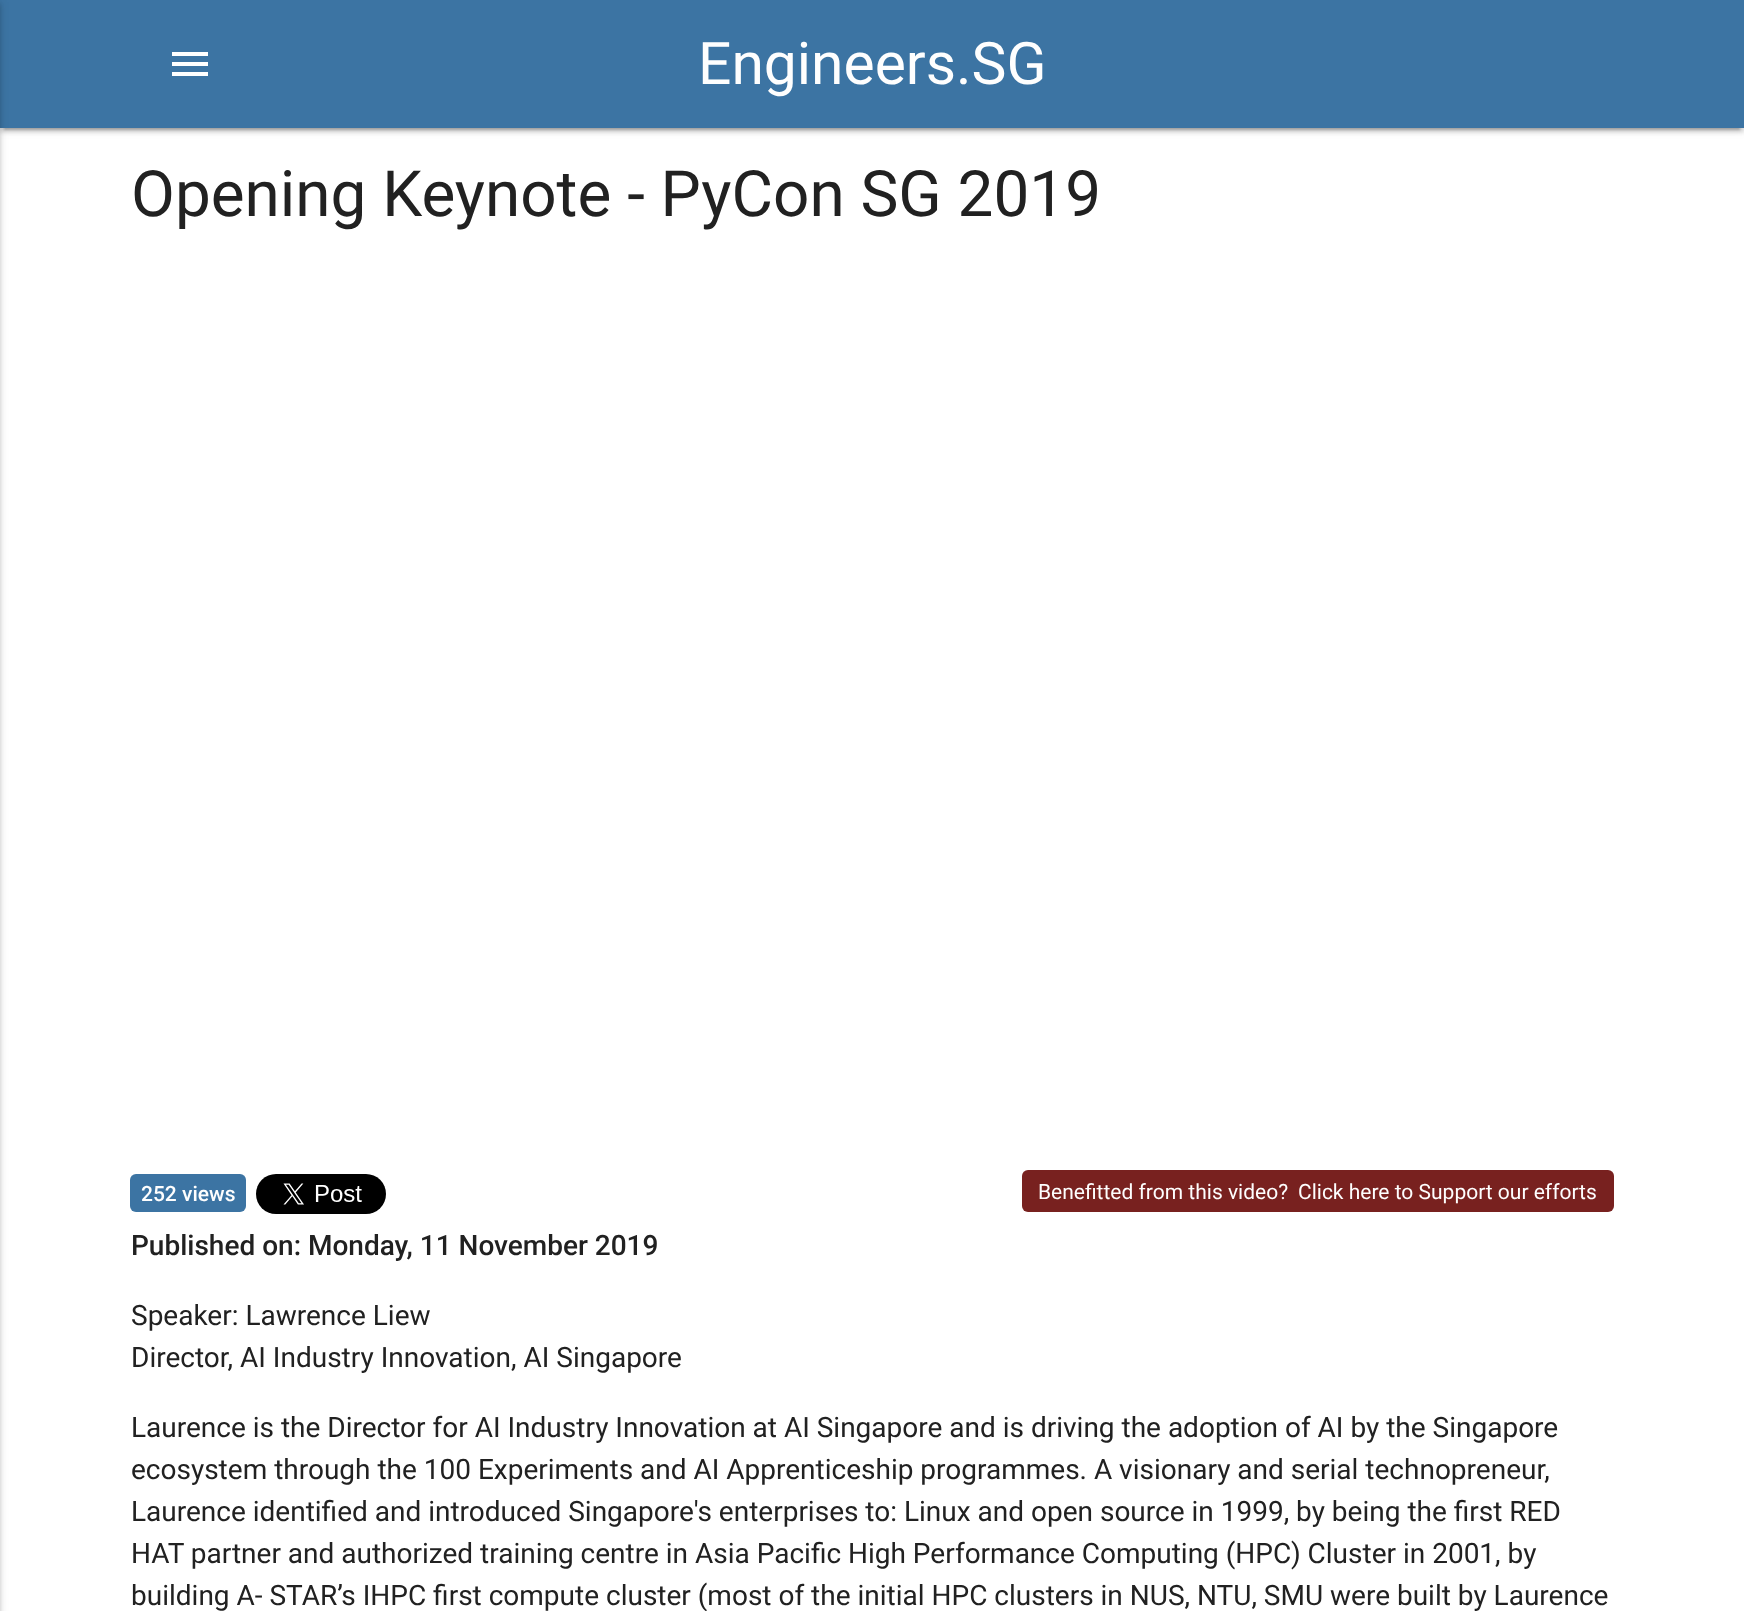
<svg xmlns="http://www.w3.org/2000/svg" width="1744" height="1611">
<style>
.a{font:58.75px Roboto;fill:#fefefe}
.b{font:63.8px Roboto;fill:#212121}
.c{font:500 21px Roboto;fill:#fefefe}
.d{font:21px Roboto;fill:#fefefe}
.e{font:500 28px Roboto;fill:#212121}
.f{font:28px Roboto;fill:#212121}
</style>
<rect width="100%" height="100%" fill="#fff"/>
<path fill="#00000033" filter="blur(1px)" d="M4 10h1736v120H4z"/>
<path fill="#0000001f" filter="blur(5px)" d="M0 2h1744v128H0z"/>
<path fill="#00000024" filter="blur(2px)" d="M0 4h1744v128H0z"/>
<path fill="#3c74a3" d="M0 0h1744v128H0z"/>
<path fill="#0000001f" filter="blur(5px)" d="M-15 2h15v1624H-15z"/>
<path fill="#00000024" filter="blur(2px)" d="M-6 4h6v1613H-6z"/>
<path fill="#fff" d="M172 52h36v4h-36zm0 14v-4h36v4zm0 10v-4h36v4z"/>
<rect fill="#3c74a3" x="130" y="1174" width="116" height="38" rx="6"/>
<image href="1.png" x="256" y="1174" width="130" height="40"/>
<rect fill="#78211f" x="1022" y="1170" width="592" height="42" rx="6"/>
<text class="a" x="698" y="84">Engineers.SG</text>
<text class="b" x="131" y="216">Opening Keynote - PyCon SG 2019</text>
<text class="c" x="141" y="1201">252 views</text>
<text class="d" x="1038" y="1199">Benefitted from this video?</text>
<text class="d" x="1298" y="1199">Click here to Support our efforts</text>
<text class="e" x="131" y="1255">Published on: Monday, 11 November 2019</text>
<text class="f" x="131" y="1325">Speaker: Lawrence Liew</text>
<text class="f" x="131" y="1367">Director, AI Industry Innovation, AI Singapore</text>
<text class="f" x="131" y="1437">Laurence is the Director for AI Industry Innovation at AI Singapore and is driving the adoption of AI by the Singapore</text>
<text class="f" x="131" y="1479">ecosystem through the 100 Experiments and AI Apprenticeship programmes. A visionary and serial technopreneur,</text>
<text class="f" x="131" y="1521">Laurence identified and introduced Singapore's enterprises to: Linux and open source in 1999, by being the first RED</text>
<text class="f" x="131" y="1563">HAT partner and authorized training centre in Asia Pacific High Performance Computing (HPC) Cluster in 2001, by</text>
<text class="f" x="131" y="1605">building A- STAR’s IHPC first compute cluster (most of the initial HPC clusters in NUS, NTU, SMU were built by Laurence</text>
</svg>
